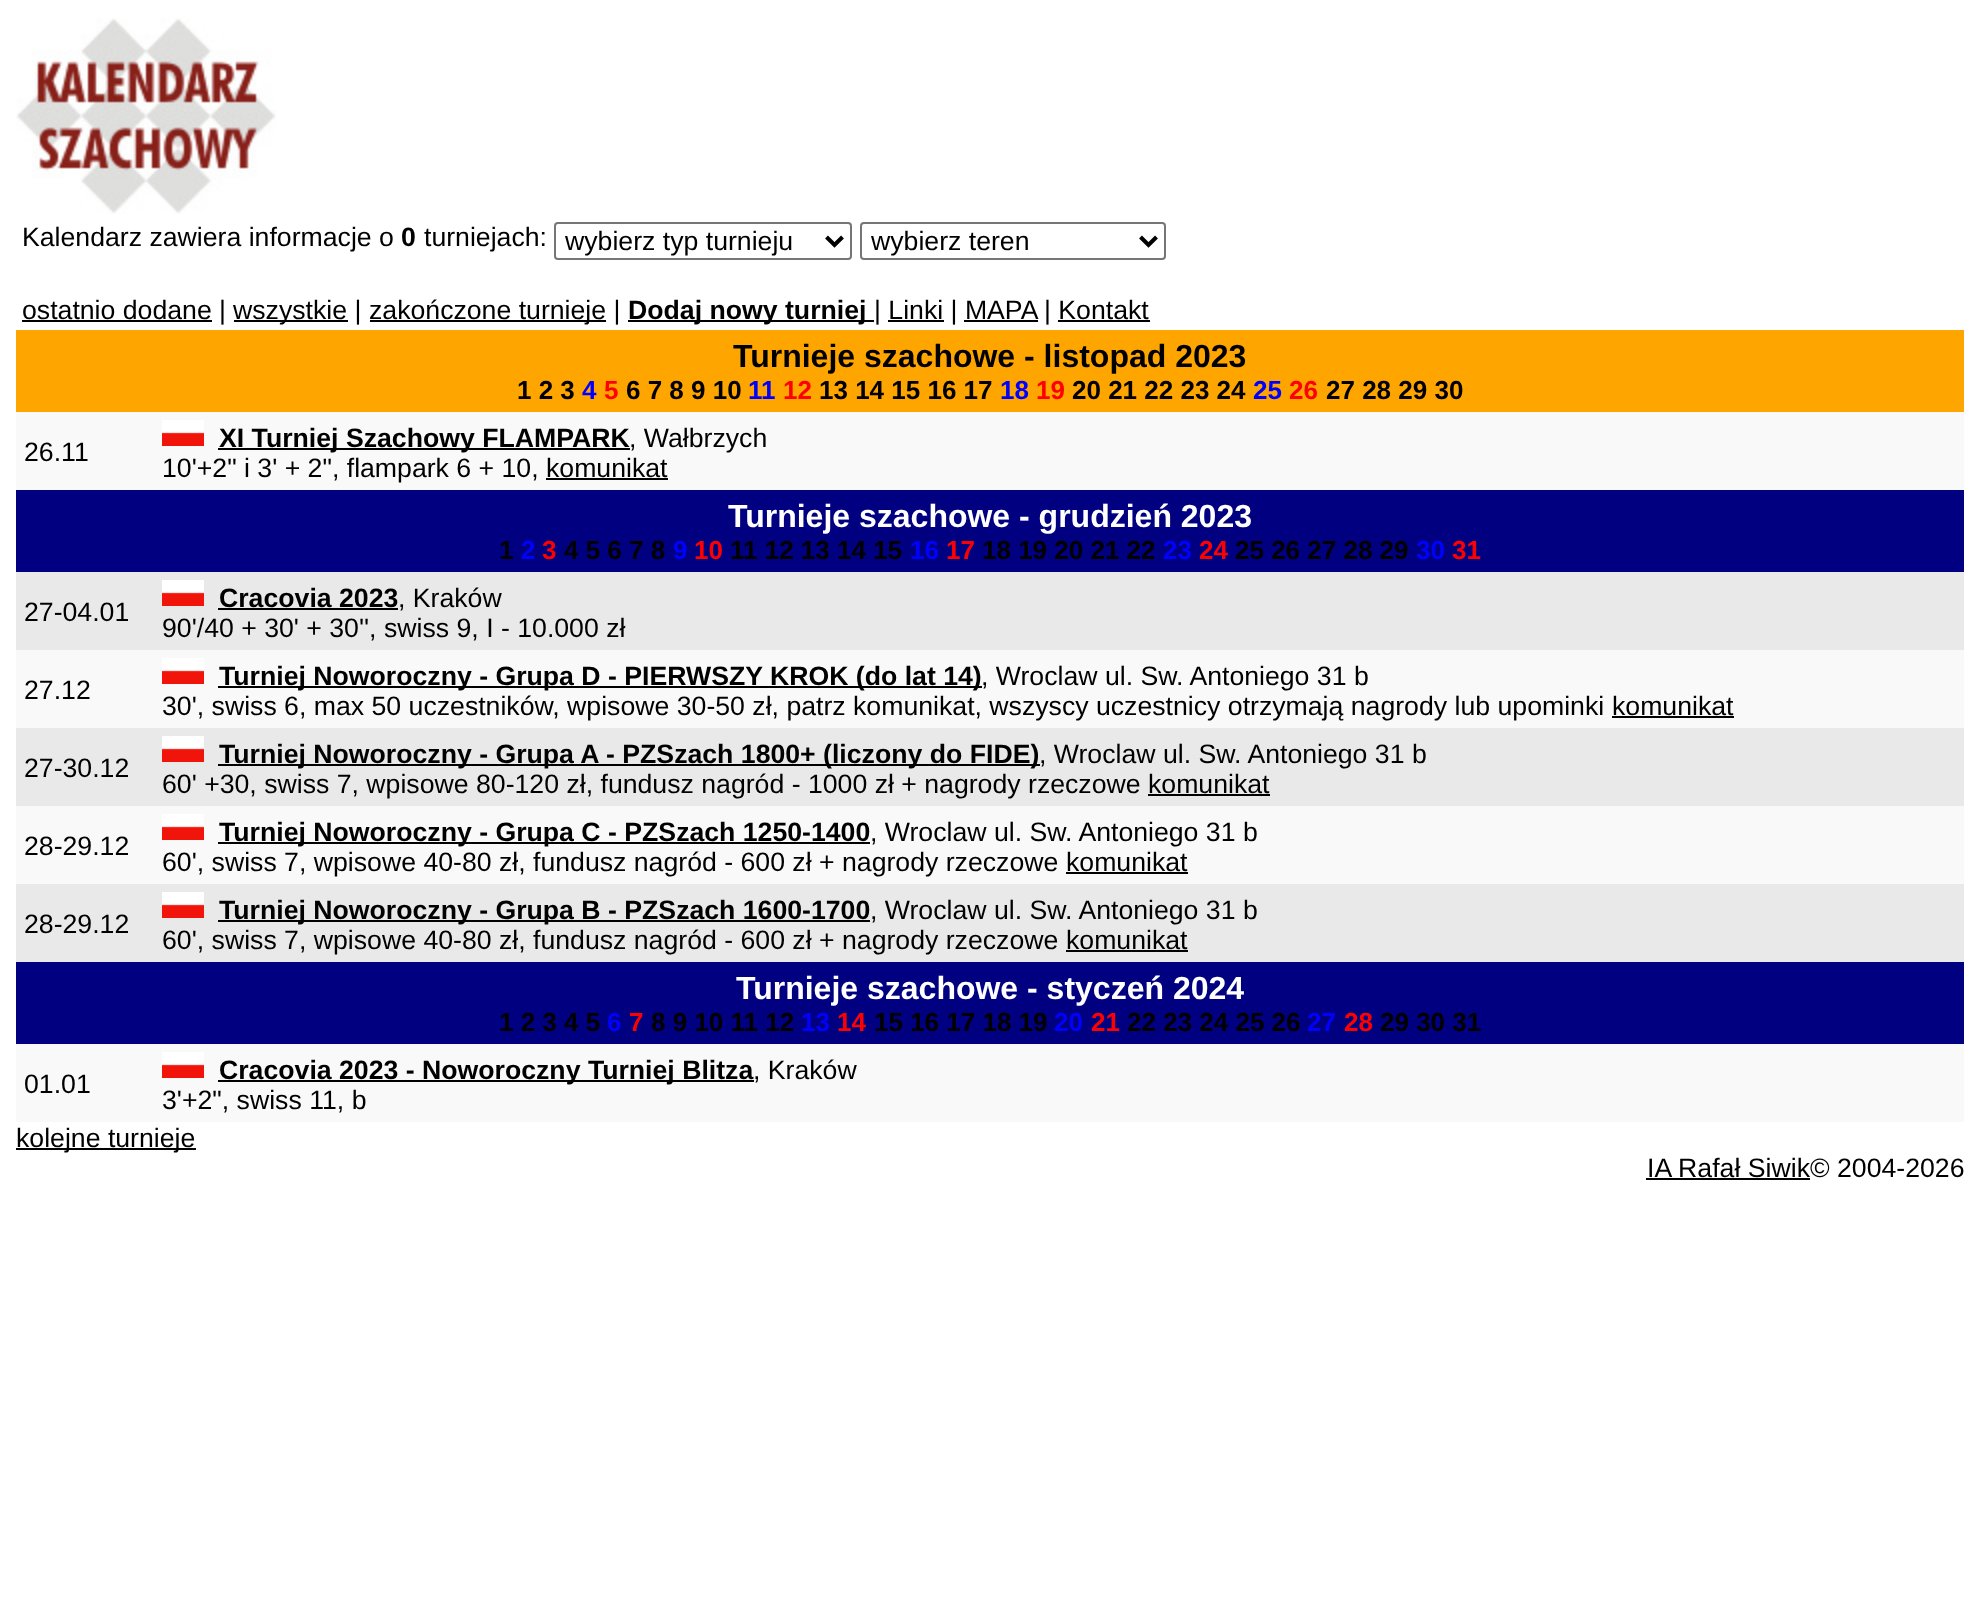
<svg xmlns="http://www.w3.org/2000/svg" width="1979" height="1606">
<style>
.a{font:26.67px Liberation Sans;fill:#000}
.b{font:bold 26.67px Liberation Sans;fill:#000}
.c{font:bold 32px Liberation Sans;fill:#000}
.d{font:bold 26px Liberation Sans;fill:#000}
.e{font:bold 26px Liberation Sans;fill:#00f}
.f{font:bold 26px Liberation Sans;fill:#f00}
.g{font:bold 32px Liberation Sans;fill:#fff}
</style>
<rect width="100%" height="100%" fill="#fff"/>
<image href="1.png" x="16" y="18" width="260" height="196"/>
<rect fill="none" stroke="#767676" stroke-width="2" x="555" y="223" width="296" height="36" rx="3"/>
<path fill="none" stroke="#000" stroke-width="4" d="M826.5 237l8 8l8-8"/>
<rect fill="none" stroke="#767676" stroke-width="2" x="861" y="223" width="304" height="36" rx="3"/>
<path fill="none" stroke="#000" stroke-width="4" d="M1140.5 237l8 8l8-8"/>
<path fill="#000" d="M22 320h190v2H22z"/>
<path fill="#000" d="M234 320h114v2H234z"/>
<path fill="#000" d="M370 320h236v2H370z"/>
<path fill="#000" d="M628 320h246v2H628z"/>
<path fill="#000" d="M888 320h56v2H888z"/>
<path fill="#000" d="M964 320h74v2H964z"/>
<path fill="#000" d="M1058 320h92v2H1058z"/>
<path fill="#ffa500" d="M16 330h1948v82H16z"/>
<path fill="#f9f9f9" d="M16 412h1948v78H16z"/>
<image href="2.png" x="162" y="420" width="42" height="26"/>
<path fill="#000" d="M218 448h412v2H218z"/>
<path fill="#000" d="M546 478h122v2H546z"/>
<path fill="#000080" d="M16 490h1948v82H16z"/>
<path fill="#e9e9e9" d="M16 572h1948v78H16z"/>
<image href="2.png" x="162" y="580" width="42" height="26"/>
<path fill="#000" d="M218 608h180v2H218z"/>
<path fill="#f9f9f9" d="M16 650h1948v78H16z"/>
<image href="2.png" x="162" y="658" width="42" height="26"/>
<path fill="#000" d="M218 686h764v2H218z"/>
<path fill="#000" d="M1612 716h122v2H1612z"/>
<path fill="#e9e9e9" d="M16 728h1948v78H16z"/>
<image href="2.png" x="162" y="736" width="42" height="26"/>
<path fill="#000" d="M218 764h822v2H218z"/>
<path fill="#000" d="M1148 794h122v2H1148z"/>
<path fill="#f9f9f9" d="M16 806h1948v78H16z"/>
<image href="2.png" x="162" y="814" width="42" height="26"/>
<path fill="#000" d="M218 842h652v2H218z"/>
<path fill="#000" d="M1066 872h122v2H1066z"/>
<path fill="#e9e9e9" d="M16 884h1948v78H16z"/>
<image href="2.png" x="162" y="892" width="42" height="26"/>
<path fill="#000" d="M218 920h652v2H218z"/>
<path fill="#000" d="M1066 950h122v2H1066z"/>
<path fill="#000080" d="M16 962h1948v82H16z"/>
<path fill="#f9f9f9" d="M16 1044h1948v78H16z"/>
<image href="2.png" x="162" y="1052" width="42" height="26"/>
<path fill="#000" d="M218 1080h536v2H218z"/>
<path fill="#000" d="M16 1148h180v2H16z"/>
<path fill="#000" d="M1646 1178h164v2H1646z"/>
<text class="a" x="22" y="246">Kalendarz zawiera informacje o</text>
<text class="b" x="401" y="246">0</text>
<text class="a" x="424" y="246">turniejach:</text>
<text class="a" x="565" y="250">wybierz typ turnieju</text>
<text class="a" x="871" y="250">wybierz teren</text>
<text class="a" x="22" y="319">ostatnio dodane |</text>
<text class="a" x="233" y="319">wszystkie |</text>
<text class="a" x="369" y="319">zakończone turnieje |</text>
<text class="b" x="628" y="319">Dodaj nowy turniej</text>
<text class="a" x="874" y="319">| Linki | MAPA</text>
<text class="a" x="1044" y="319">| Kontakt</text>
<text class="c" x="733" y="367">Turnieje szachowe - listopad 2023</text>
<text class="d" x="517" y="399">1 2 3</text>
<text class="e" x="582" y="399">4</text>
<text class="f" x="604" y="399">5</text>
<text class="d" x="626" y="399">6 7 8 9 10</text>
<text class="e" x="748" y="399">11</text>
<text class="f" x="783" y="399">12</text>
<text class="d" x="819" y="399">13 14 15 16 17</text>
<text class="e" x="1000" y="399">18</text>
<text class="f" x="1036" y="399">19</text>
<text class="d" x="1072" y="399">20 21 22 23 24</text>
<text class="e" x="1253" y="399">25</text>
<text class="f" x="1289" y="399">26</text>
<text class="d" x="1326" y="399">27 28 29 30</text>
<text class="a" x="24" y="461">26.11</text>
<text class="b" x="219" y="447">XI Turniej Szachowy FLAMPARK</text>
<text class="a" x="629" y="447">, Wałbrzych</text>
<text class="a" x="162" y="477">10'+2" i 3' + 2", flampark 6 + 10, komunikat</text>
<text class="g" x="728" y="527">Turnieje szachowe - grudzień 2023</text>
<text class="d" x="499" y="559">1</text>
<text class="e" x="521" y="559">2</text>
<text class="f" x="542" y="559">3</text>
<text class="d" x="564" y="559">4 5 6 7 8</text>
<text class="e" x="673" y="559">9</text>
<text class="f" x="694" y="559">10</text>
<text class="d" x="730" y="559">11 12 13 14 15</text>
<text class="e" x="910" y="559">16</text>
<text class="f" x="946" y="559">17</text>
<text class="d" x="982" y="559">18 19 20 21 22</text>
<text class="e" x="1163" y="559">23</text>
<text class="f" x="1199" y="559">24</text>
<text class="d" x="1235" y="559">25 26 27 28 29</text>
<text class="e" x="1416" y="559">30</text>
<text class="f" x="1452" y="559">31</text>
<text class="a" x="24" y="621">27-04.01</text>
<text class="b" x="219" y="607">Cracovia 2023</text>
<text class="a" x="398" y="607">, Kraków</text>
<text class="a" x="162" y="637">90'/40 + 30' + 30'', swiss 9, I - 10.000 zł</text>
<text class="a" x="24" y="699">27.12</text>
<text class="b" x="219" y="685">Turniej Noworoczny - Grupa D - PIERWSZY KROK (do lat 14)</text>
<text class="a" x="981" y="685">, Wroclaw ul. Sw. Antoniego 31 b</text>
<text class="a" x="162" y="715">30', swiss 6, max 50 uczestników, wpisowe 30-50 zł, patrz komunikat, wszyscy uczestnicy otrzymają nagrody lub upominki</text>
<text class="a" x="1612" y="715">komunikat</text>
<text class="a" x="24" y="777">27-30.12</text>
<text class="b" x="219" y="763">Turniej Noworoczny - Grupa A - PZSzach 1800+ (liczony do FIDE)</text>
<text class="a" x="1039" y="763">, Wroclaw ul. Sw. Antoniego 31 b</text>
<text class="a" x="162" y="793">60' +30, swiss 7, wpisowe 80-120 zł, fundusz nagród - 1000 zł + nagrody rzeczowe</text>
<text class="a" x="1148" y="793">komunikat</text>
<text class="a" x="24" y="855">28-29.12</text>
<text class="b" x="219" y="841">Turniej Noworoczny - Grupa C - PZSzach 1250-1400</text>
<text class="a" x="870" y="841">, Wroclaw ul. Sw. Antoniego 31 b</text>
<text class="a" x="162" y="871">60', swiss 7, wpisowe 40-80 zł, fundusz nagród - 600 zł + nagrody rzeczowe</text>
<text class="a" x="1066" y="871">komunikat</text>
<text class="a" x="24" y="933">28-29.12</text>
<text class="b" x="219" y="919">Turniej Noworoczny - Grupa B - PZSzach 1600-1700</text>
<text class="a" x="870" y="919">, Wroclaw ul. Sw. Antoniego 31 b</text>
<text class="a" x="162" y="949">60', swiss 7, wpisowe 40-80 zł, fundusz nagród - 600 zł + nagrody rzeczowe</text>
<text class="a" x="1066" y="949">komunikat</text>
<text class="g" x="736" y="999">Turnieje szachowe - styczeń 2024</text>
<text class="d" x="499" y="1031">1 2 3 4 5</text>
<text class="e" x="607" y="1031">6</text>
<text class="f" x="629" y="1031">7</text>
<text class="d" x="651" y="1031">8 9 10 11 12</text>
<text class="e" x="801" y="1031">13</text>
<text class="f" x="837" y="1031">14</text>
<text class="d" x="874" y="1031">15 16 17 18 19</text>
<text class="e" x="1054" y="1031">20</text>
<text class="f" x="1091" y="1031">21</text>
<text class="d" x="1127" y="1031">22 23 24 25 26</text>
<text class="e" x="1307" y="1031">27</text>
<text class="f" x="1344" y="1031">28</text>
<text class="d" x="1380" y="1031">29 30 31</text>
<text class="a" x="24" y="1093">01.01</text>
<text class="b" x="219" y="1079">Cracovia 2023 - Noworoczny Turniej Blitza</text>
<text class="a" x="753" y="1079">, Kraków</text>
<text class="a" x="162" y="1109">3'+2", swiss 11, b</text>
<text class="a" x="16" y="1147">kolejne turnieje</text>
<text class="a" x="1647" y="1177">IA Rafał Siwik© 2004-2026</text>
</svg>
